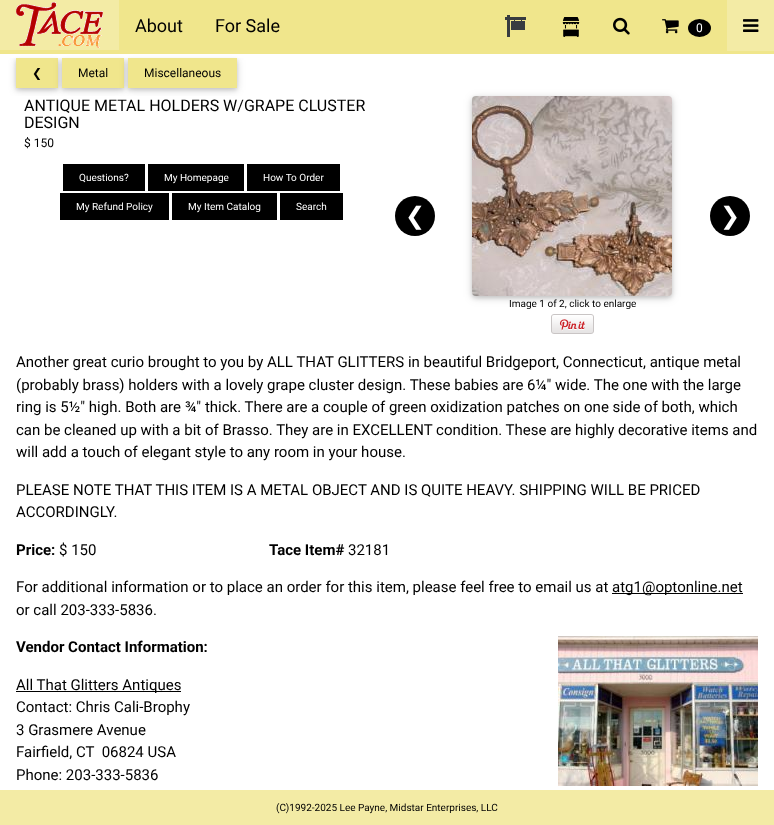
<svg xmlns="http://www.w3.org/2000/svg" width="774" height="825">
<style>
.a{font:18px Roboto;fill:#000}
.b{font:12px Roboto;fill:#fff}
.c{font:12px DejaVu Sans;fill:#000}
.d{font:12px Roboto;fill:#000}
.e{font:16px Roboto;fill:#000}
.f{font:10px Roboto;fill:#fff}
.g{font:24px DejaVu Sans;fill:#fff}
.h{font:10px Roboto;fill:#000}
.i{font:15px Roboto;fill:#000}
.j{font:bold 15px Roboto;fill:#000}
</style>
<defs>
<clipPath id="clip1"><path d="M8 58h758v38H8z"/></clipPath>
</defs>
<rect width="100%" height="100%" fill="#fff"/>
<g clip-path="url(#clip1)">
<path fill="#0000001f" filter="blur(5px)" d="M16 60h42v30H16z"/>
</g>
<path fill="#00000029" filter="blur(2px)" d="M16 60h42v30H16z"/>
<path fill="#f0e68c" d="M16 58h42v30H16z"/>
<g clip-path="url(#clip1)">
<path fill="#0000001f" filter="blur(5px)" d="M62 60h62v30H62z"/>
</g>
<path fill="#00000029" filter="blur(2px)" d="M62 60h62v30H62z"/>
<path fill="#f0e68c" d="M62 58h62v30H62z"/>
<g clip-path="url(#clip1)">
<path fill="#0000001f" filter="blur(5px)" d="M128 60h109v30H128z"/>
</g>
<path fill="#00000029" filter="blur(2px)" d="M128 60h109v30H128z"/>
<path fill="#f0e68c" d="M0 0h774v54H0z"/>
<path fill="#f3eba5" d="M0 0h119v50H0z"/>
<image href="1.png" x="16" y="2" width="87" height="46"/>
<image href="2.png" x="505" y="15" width="21" height="22"/>
<image href="3.png" x="562" y="17" width="18" height="20"/>
<image href="4.png" x="613" y="17" width="17" height="18"/>
<image href="5.png" x="662" y="19" width="17" height="15"/>
<ellipse fill="#000" cx="699.5" cy="28" rx="11.5" ry="9"/>
<path fill="#f3eba5" d="M727 0h47v51H727z"/>
<image href="6.png" x="743" y="19" width="16" height="13"/>
<path fill="#f0e68c" d="M128 58h109v30H128z"/>
<path fill="#000" d="M63 164h82v27H63z"/>
<path fill="#000" d="M148 164h96v27H148z"/>
<path fill="#000" d="M247 164h93v27H247z"/>
<path fill="#000" d="M60 193h109v27H60z"/>
<path fill="#000" d="M172 193h105v27H172z"/>
<path fill="#000" d="M280 193h63v27H280z"/>
<circle fill="#000" cx="415" cy="216" r="20"/>
<rect fill="#0000001f" filter="blur(5px)" x="472" y="98" width="200" height="200" rx="4"/>
<rect fill="#00000029" filter="blur(2px)" x="472" y="98" width="200" height="200" rx="4"/>
<image href="7.png" x="472" y="96" width="200" height="200"/>
<circle fill="#000" cx="730" cy="216" r="20"/>
<image href="8.png" x="551" y="314" width="43" height="20"/>
<path fill="#000" d="M612 593h131v1H612z"/>
<image href="9.png" x="558" y="636" width="200" height="150"/>
<path fill="#000" d="M16 691h165v1H16z"/>
<path fill="#f3eba5" d="M0 790h774v35H0z"/>
<text class="a" x="135" y="32">About</text>
<text class="a" x="215" y="32">For Sale</text>
<text class="b" x="696" y="32">0</text>
<text class="c" x="32" y="77">❮</text>
<text class="d" x="78" y="77">Metal</text>
<text class="d" x="144" y="77">Miscellaneous</text>
<text class="e" x="24" y="111">ANTIQUE METAL HOLDERS W/GRAPE CLUSTER</text>
<text class="e" x="24" y="128">DESIGN</text>
<text class="d" x="24" y="147">$ 150</text>
<text class="f" x="79" y="181">Questions?</text>
<text class="f" x="164" y="181">My Homepage</text>
<text class="f" x="263" y="181">How To Order</text>
<text class="f" x="76" y="210">My Refund Policy</text>
<text class="f" x="188" y="210">My Item Catalog</text>
<text class="f" x="296" y="210">Search</text>
<text class="g" x="405" y="224">❮</text>
<text class="g" x="720" y="224">❯</text>
<text class="h" x="509" y="307">Image 1 of 2, click to enlarge</text>
<text class="i" x="16" y="367">Another great curio brought to you by ALL THAT GLITTERS in beautiful Bridgeport, Connecticut, antique metal</text>
<text class="i" x="16" y="390">(probably brass) holders with a lovely grape cluster design. These babies are 6¼" wide. The one with the large</text>
<text class="i" x="16" y="412">ring is 5½" high. Both are ¾" thick. There are a couple of green oxidization patches on one side of both, which</text>
<text class="i" x="16" y="435">can be cleaned up with a bit of Brasso. They are in EXCELLENT condition. These are highly decorative items and</text>
<text class="i" x="16" y="457">will add a touch of elegant style to any room in your house.</text>
<text class="i" x="16" y="495">PLEASE NOTE THAT THIS ITEM IS A METAL OBJECT AND IS QUITE HEAVY. SHIPPING WILL BE PRICED</text>
<text class="i" x="16" y="517">ACCORDINGLY.</text>
<text class="j" x="16" y="555">Price:</text>
<text class="i" x="59" y="555">$ 150</text>
<text class="j" x="269" y="555">Tace Item#</text>
<text class="i" x="348" y="555">32181</text>
<text class="i" x="16" y="592">For additional information or to place an order for this item, please feel free to email us at</text>
<text class="i" x="612" y="592">atg1@optonline.net</text>
<text class="i" x="16" y="615">or call 203-333-5836.</text>
<text class="j" x="16" y="652">Vendor Contact Information:</text>
<text class="i" x="16" y="690">All That Glitters Antiques</text>
<text class="i" x="16" y="712">Contact: Chris Cali-Brophy</text>
<text class="i" x="16" y="735">3 Grasmere Avenue</text>
<text class="i" xml:space="preserve" x="16" y="757">Fairfield, CT  06824 USA</text>
<text class="i" x="16" y="780">Phone: 203-333-5836</text>
<text class="h" x="276" y="811">(C)1992-2025 Lee Payne, Midstar Enterprises, LLC</text>
</svg>
